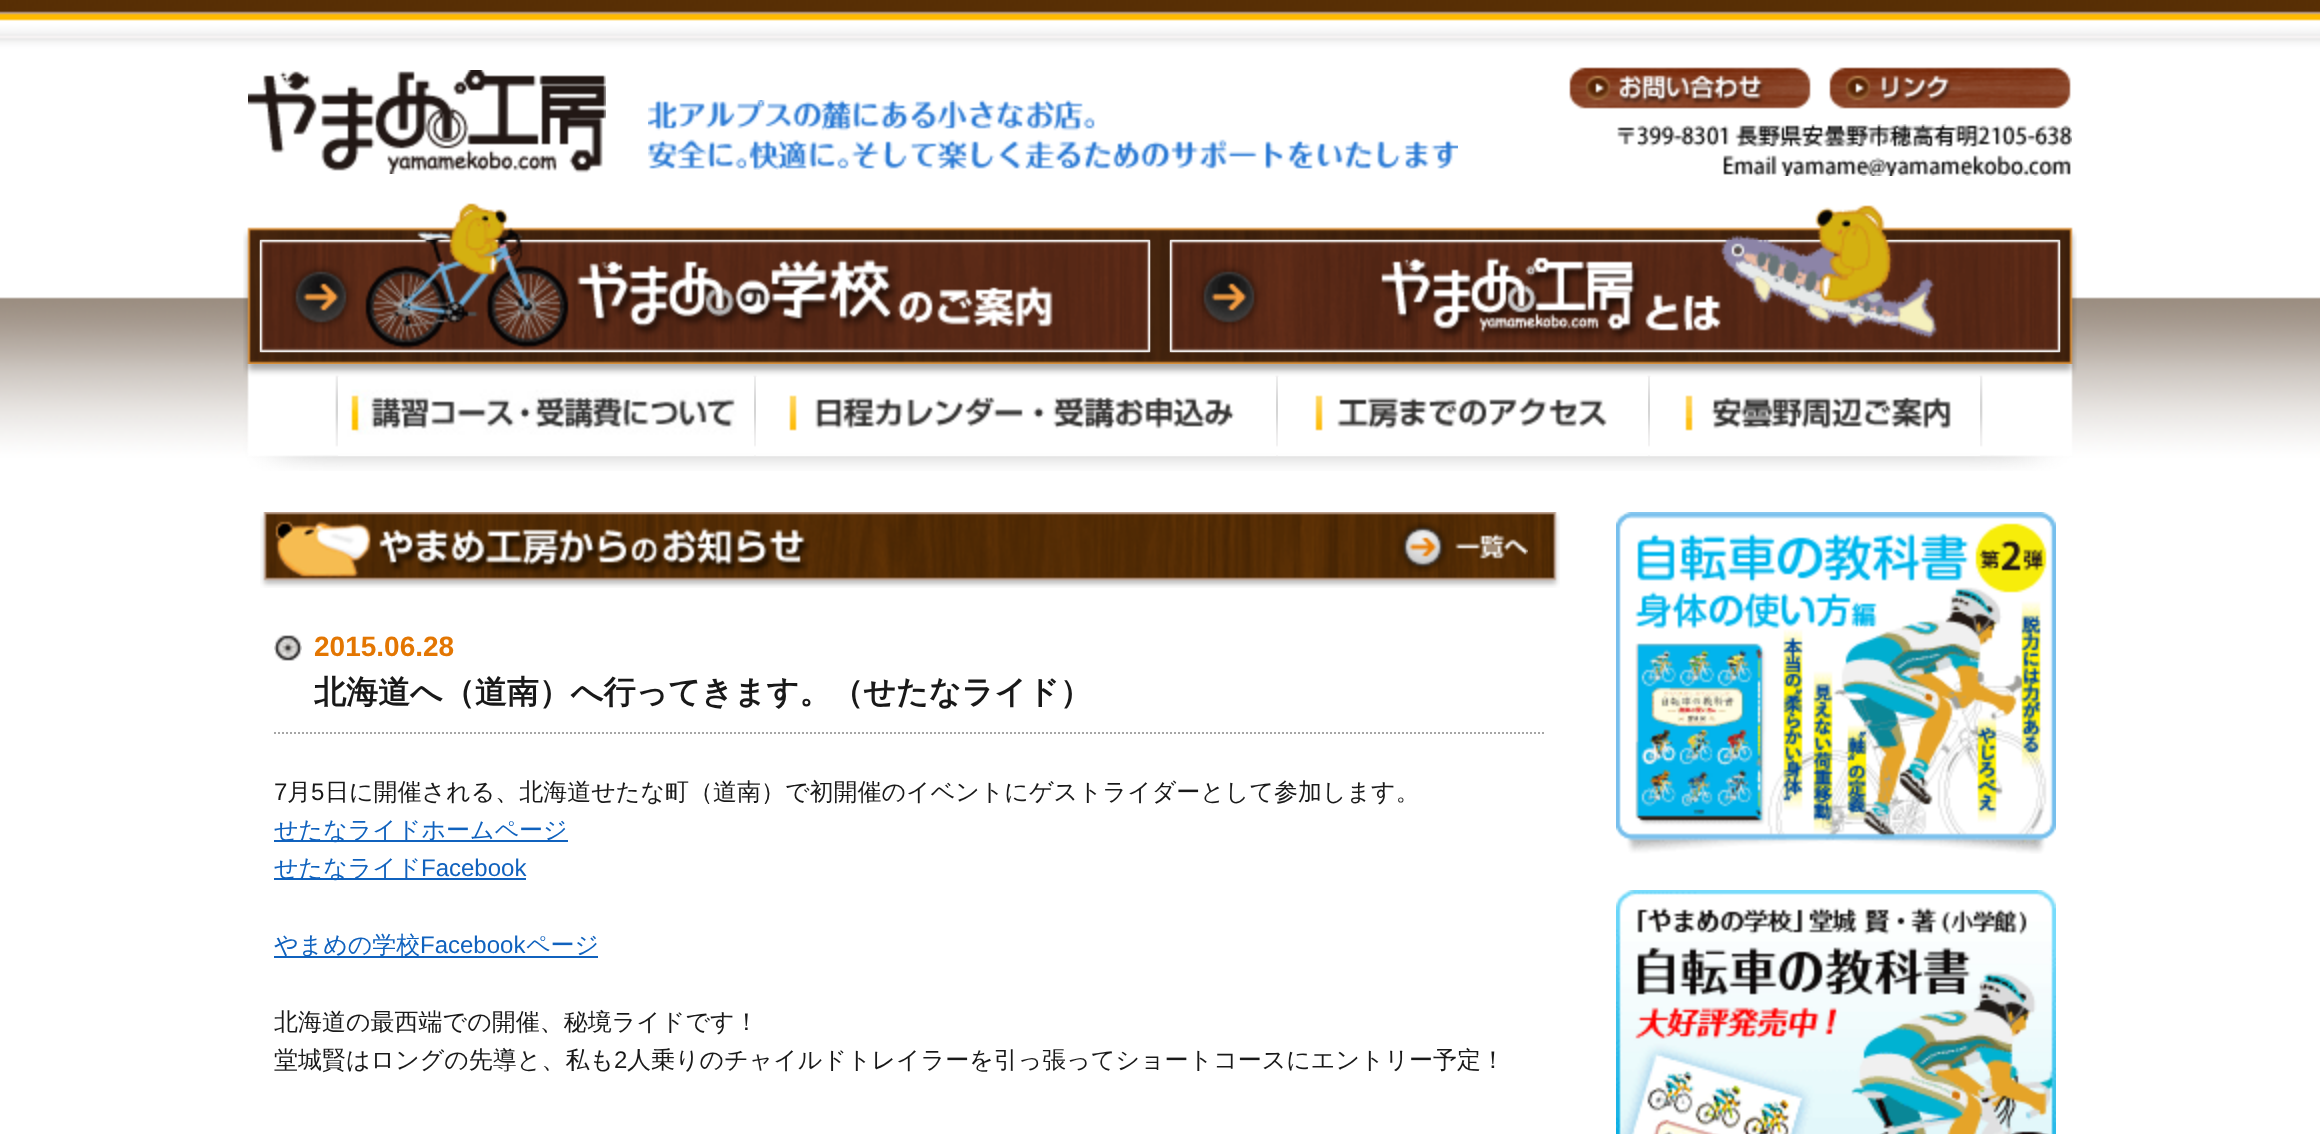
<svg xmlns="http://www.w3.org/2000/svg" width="2320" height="1134">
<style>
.a{font:bold 28px Liberation Sans;fill:#e37602}
.b{font:bold 32px WenQuanYi Zen Hei;fill:#191919}
.c{font:24px Liberation Sans;fill:#191919}
.d{font:500 24px WenQuanYi Zen Hei;fill:#191919}
.e{font:500 24px WenQuanYi Zen Hei;fill:#1062be}
.f{font:24px Liberation Sans;fill:#1062be}
</style>
<rect width="100%" height="100%" fill="#fff"/>
<image href="1.png" x="0" y="0" width="2320" height="194"/>
<image href="2.png" x="248" y="70" width="358" height="104"/>
<image href="3.png" x="648" y="100" width="810" height="70"/>
<image href="4.png" x="1569" y="67" width="242" height="42"/>
<image href="5.png" x="1829" y="67" width="242" height="42"/>
<image href="6.png" x="1617" y="124" width="455" height="52"/>
<image href="7.png" x="0" y="194" width="2320" height="280"/>
<image href="8.png" x="243" y="203" width="1834" height="161"/>
<image href="9.png" x="260" y="240" width="890" height="112"/>
<image href="10.png" x="1170" y="240" width="890" height="112"/>
<image href="11.png" x="243" y="364" width="1834" height="107"/>
<image href="12.png" x="338" y="377" width="416" height="79"/>
<image href="13.png" x="756" y="377" width="520" height="79"/>
<image href="14.png" x="1278" y="377" width="370" height="79"/>
<image href="15.png" x="1650" y="377" width="330" height="79"/>
<image href="16.png" x="260" y="512" width="1300" height="76"/>
<image href="17.png" x="1398" y="522" width="130" height="50"/>
<path fill="none" stroke="#a6a6a6" stroke-width="2" stroke-dasharray="2 2" d="M274 733h1272"/>
<image href="18.png" x="274" y="635" width="28" height="26"/>
<path fill="#1062be" d="M274 840h294v2H274z"/>
<path fill="#1062be" d="M274 878h252v2H274z"/>
<path fill="#1062be" d="M274 956h324v2H274z"/>
<image href="19.png" x="1616" y="512" width="440" height="342"/>
<image href="20.png" x="1616" y="890" width="440" height="244"/>
<text class="a" x="314" y="656">2015.06.28</text>
<text class="b" x="314" y="703">北海道へ（道南）へ行ってきます。（せたなライド）</text>
<text class="c" x="274" y="800">7</text>
<text class="d" x="287" y="800">月</text>
<text class="c" x="311" y="800">5</text>
<text class="d" x="325" y="800">日に開催される、北海道せたな町（道南）で初開催のイベントにゲストライダーとして参加します。</text>
<text class="e" x="274" y="838">せたなライドホームページ</text>
<text class="e" x="274" y="876">せたなライド</text>
<text class="f" x="421" y="876">Facebook</text>
<text class="e" x="274" y="953">やまめの学校</text>
<text class="f" x="420" y="953">Facebook</text>
<text class="e" x="526" y="953">ページ</text>
<text class="d" x="274" y="1030">北海道の最西端での開催、秘境ライドです！</text>
<text class="d" x="274" y="1068">堂城賢はロングの先導と、私も</text>
<text class="c" x="614" y="1068">2</text>
<text class="d" x="627" y="1068">人乗りのチャイルドトレイラーを引っ張ってショートコースにエントリー予定！</text>
</svg>
